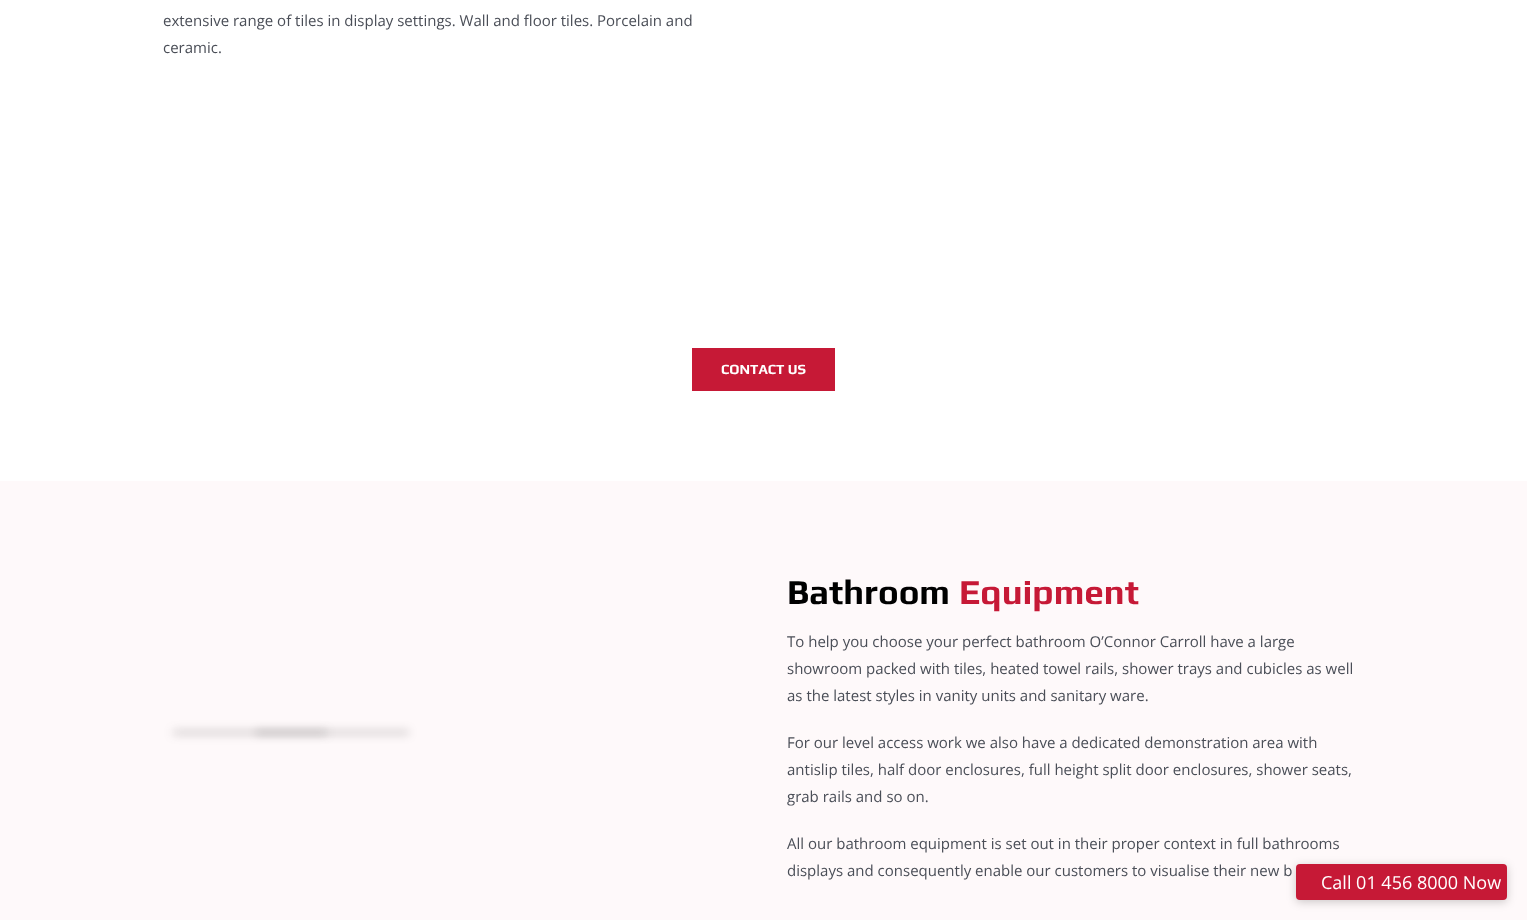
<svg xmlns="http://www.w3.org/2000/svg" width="1527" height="920">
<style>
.a{font:15px Open Sans;fill:#4a4e57}
.b{font:bold 14px Play;fill:#fff}
.c{font:bold 35px Play;fill:#000}
.d{font:bold 35px Play;fill:#c61936}
.e{font:18px Open Sans;fill:#fff}
</style>
<rect width="100%" height="100%" fill="#fff"/>
<path fill="#c61936" d="M692 348h143v43H692z"/>
<path fill="#fef9fa" d="M0 481h1527v439H0z"/>
<path fill="#4c4b4b66" filter="blur(5px)" d="M173 731h154v3H173z"/>
<path fill="#00000047" filter="blur(5px)" d="M256 731h153v3H256z"/>
<rect fill="#00000033" filter="blur(5px)" x="1296" y="866" width="211" height="36" rx="4"/>
<rect fill="#c61936" x="1296" y="864" width="211" height="36" rx="4"/>
<text class="a" x="163" y="26">extensive range of tiles in display settings. Wall and floor tiles. Porcelain and</text>
<text class="a" x="163" y="53">ceramic.</text>
<text class="b" x="721" y="374">CONTACT US</text>
<text class="c" x="787" y="604">Bathroom</text>
<text class="d" x="959" y="604">Equipment</text>
<text class="a" x="787" y="647">To help you choose your perfect bathroom O’Connor Carroll have a large</text>
<text class="a" x="787" y="674">showroom packed with tiles, heated towel rails, shower trays and cubicles as well</text>
<text class="a" x="787" y="701">as the latest styles in vanity units and sanitary ware.</text>
<text class="a" x="787" y="748">For our level access work we also have a dedicated demonstration area with</text>
<text class="a" x="787" y="775">antislip tiles, half door enclosures, full height split door enclosures, shower seats,</text>
<text class="a" x="787" y="802">grab rails and so on.</text>
<text class="a" x="787" y="849">All our bathroom equipment is set out in their proper context in full bathrooms</text>
<text class="a" x="787" y="876">displays and consequently enable our customers to visualise their new b</text>
<text class="e" x="1321" y="889">Call 01 456 8000 Now</text>
</svg>
